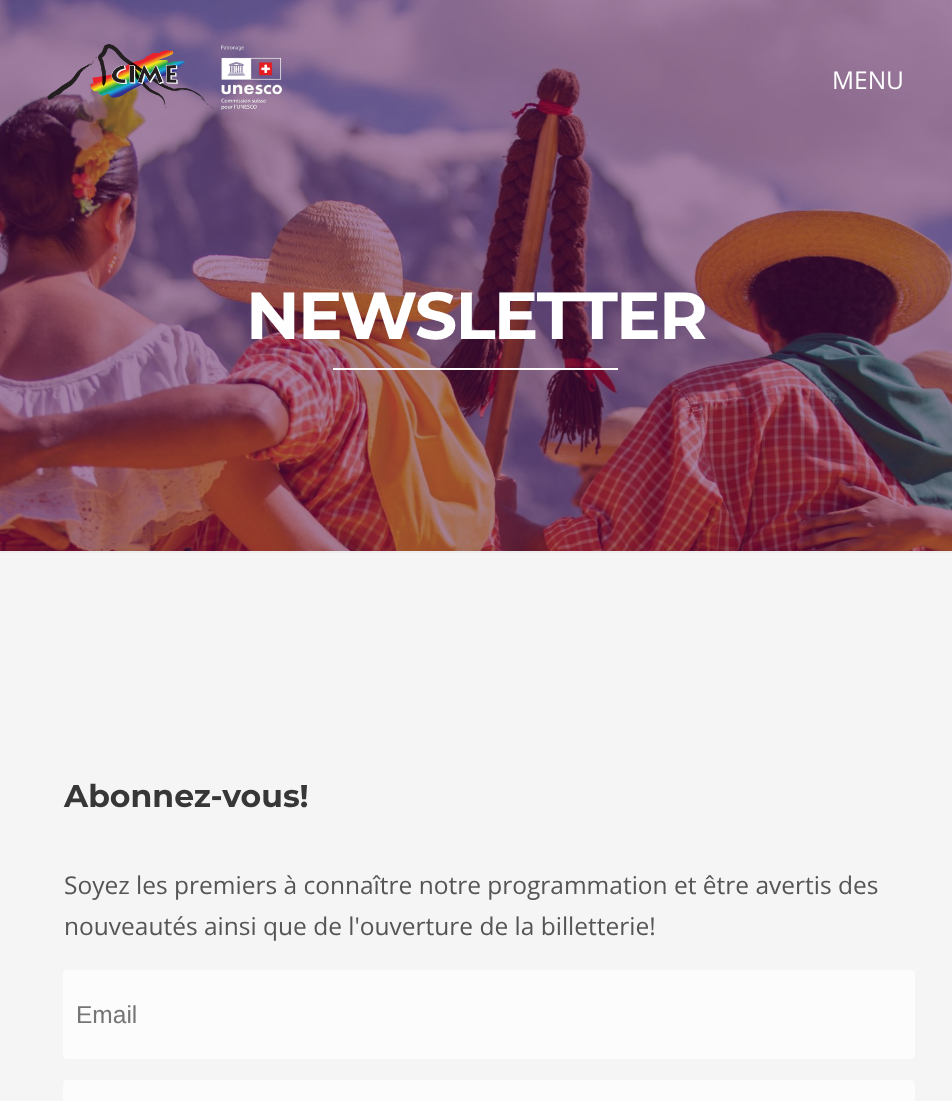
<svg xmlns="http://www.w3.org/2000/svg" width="952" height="1101">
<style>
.a{font:24.5px Open Sans;fill:#fff}
.b{font:bold 66.5px Montserrat;letter-spacing:-1.75px;fill:#fff}
.c{font:bold 31.5px Montserrat;fill:#373737}
.d{font:24.5px Open Sans;fill:#555}
.e{font:24.5px Liberation Sans;fill:#757575}
</style>
<rect width="100%" height="100%" fill="#530f54"/>
<image href="1.png" x="0" y="0" width="952" height="551"/>
<image href="2.png" x="47" y="44" width="236" height="66"/>
<path fill="#fff" d="M333 368h285v2H333z"/>
<path fill="#f5f5f5" d="M0 553h952v548H0z"/>
<path fill="#eee" d="M0 551h952v2H0z"/>
<rect fill="#fcfcfc" x="63" y="970" width="852" height="89" rx="4"/>
<rect fill="#fcfcfc" x="63" y="1080" width="852" height="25" rx="4"/>
<text class="a" x="832" y="89">MENU</text>
<text class="b" x="246" y="339">NEWSLETTER</text>
<text class="c" x="64" y="807">Abonnez-vous!</text>
<text class="d" x="64" y="894">Soyez les premiers à connaître notre programmation et être avertis des</text>
<text class="d" x="64" y="935">nouveautés ainsi que de l'ouverture de la billetterie!</text>
<text class="e" x="76" y="1023">Email</text>
</svg>
